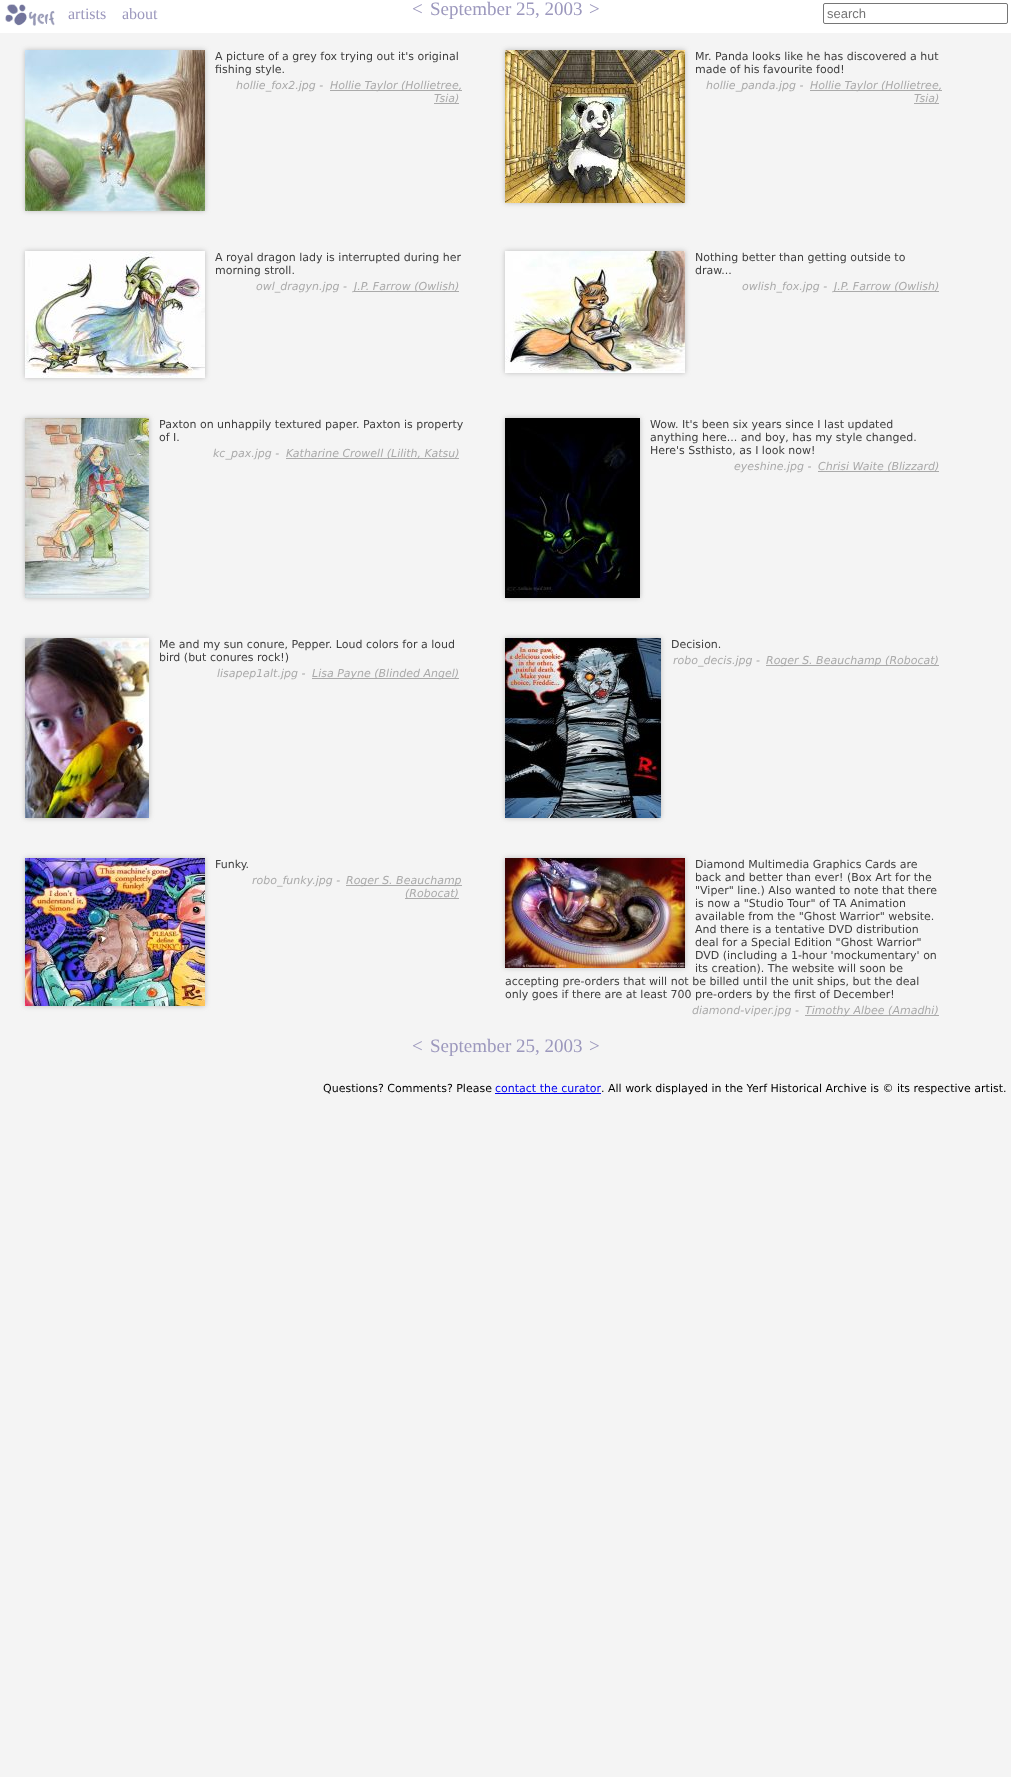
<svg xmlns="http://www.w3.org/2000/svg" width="1011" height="1777">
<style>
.a{font:19px Liberation Serif;fill:#9c98bd}
.b{font:16px Liberation Serif;fill:#9c98bd}
.c{font:13px Liberation Sans;fill:#757575}
.d{font:11px DejaVu Sans;fill:#404040}
.e{font:italic 11px DejaVu Sans;fill:#aaa}
.f{font:11px DejaVu Sans;fill:#000}
.g{font:11px DejaVu Sans;fill:#00e}
</style>
<defs>
<linearGradient id="g1" gradientUnits="userSpaceOnUse" x1="505" y1="0" x2="506" y2="1100"><stop offset="0.03" stop-color="#fff"/><stop offset="0.03" stop-color="#f4f4f4"/></linearGradient>
</defs>
<rect width="100%" height="100%" fill="#f4f4f4"/>
<path fill="url(#g1)" d="M0 0h1011v33H0z"/>
<image href="1.png" x="5" y="4" width="50" height="22"/>
<rect fill="none" stroke="#767676" x="823.5" y="3.5" width="184" height="20" rx="1.5"/>
<path fill="#bbb" filter="blur(2.5px)" d="M25 50h180v161H25z"/>
<image href="2.png" x="25" y="50" width="180" height="161"/>
<path fill="#aaa" d="M330 90h132v1H330z"/>
<path fill="#aaa" d="M434 103h25v1H434z"/>
<path fill="#bbb" filter="blur(2.5px)" d="M505 50h180v153H505z"/>
<image href="3.png" x="505" y="50" width="180" height="153"/>
<path fill="#aaa" d="M810 90h132v1H810z"/>
<path fill="#aaa" d="M914 103h25v1H914z"/>
<path fill="#bbb" filter="blur(2.5px)" d="M25 251h180v127H25z"/>
<image href="4.png" x="25" y="251" width="180" height="127"/>
<path fill="#aaa" d="M354 291h105v1H354z"/>
<path fill="#bbb" filter="blur(2.5px)" d="M505 251h180v122H505z"/>
<image href="5.png" x="505" y="251" width="180" height="122"/>
<path fill="#aaa" d="M834 291h105v1H834z"/>
<path fill="#bbb" filter="blur(2.5px)" d="M25 418h124v180H25z"/>
<image href="6.png" x="25" y="418" width="124" height="180"/>
<path fill="#aaa" d="M286 458h173v1H286z"/>
<path fill="#bbb" filter="blur(2.5px)" d="M505 418h135v180H505z"/>
<image href="7.png" x="505" y="418" width="135" height="180"/>
<path fill="#aaa" d="M818 471h121v1H818z"/>
<path fill="#bbb" filter="blur(2.5px)" d="M25 638h124v180H25z"/>
<image href="8.png" x="25" y="638" width="124" height="180"/>
<path fill="#aaa" d="M312 678h147v1H312z"/>
<path fill="#bbb" filter="blur(2.5px)" d="M505 638h156v180H505z"/>
<image href="9.png" x="505" y="638" width="156" height="180"/>
<path fill="#aaa" d="M766 665h173v1H766z"/>
<path fill="#bbb" filter="blur(2.5px)" d="M25 858h180v148H25z"/>
<image href="10.png" x="25" y="858" width="180" height="148"/>
<path fill="#aaa" d="M346 885h116v1H346z"/>
<path fill="#aaa" d="M405 898h54v1H405z"/>
<path fill="#bbb" filter="blur(2.5px)" d="M505 858h180v110H505z"/>
<image href="11.png" x="505" y="858" width="180" height="110"/>
<path fill="#aaa" d="M805 1015h134v1H805z"/>
<path fill="#00e" d="M495 1093h106v1H495z"/>
<text class="a" x="412" y="15">&lt;</text>
<text class="a" x="430" y="15">September 25, 2003</text>
<text class="a" x="589" y="15">&gt;</text>
<text class="b" x="68" y="19">artists</text>
<text class="b" x="122" y="19">about</text>
<text class="c" x="827" y="18">search</text>
<text class="d" x="215" y="60">A picture of a grey fox trying out it's original</text>
<text class="d" x="215" y="73">fishing style.</text>
<text class="e" x="236" y="89">hollie_fox2.jpg -</text>
<text class="e" x="330" y="89">Hollie Taylor (Hollietree,</text>
<text class="e" x="434" y="102">Tsia)</text>
<text class="d" x="695" y="60">Mr. Panda looks like he has discovered a hut</text>
<text class="d" x="695" y="73">made of his favourite food!</text>
<text class="e" x="706" y="89">hollie_panda.jpg -</text>
<text class="e" x="810" y="89">Hollie Taylor (Hollietree,</text>
<text class="e" x="914" y="102">Tsia)</text>
<text class="d" x="215" y="261">A royal dragon lady is interrupted during her</text>
<text class="d" x="215" y="274">morning stroll.</text>
<text class="e" x="256" y="290">owl_dragyn.jpg -</text>
<text class="e" x="354" y="290">J.P. Farrow (Owlish)</text>
<text class="d" x="695" y="261">Nothing better than getting outside to</text>
<text class="d" x="695" y="274">draw...</text>
<text class="e" x="742" y="290">owlish_fox.jpg -</text>
<text class="e" x="834" y="290">J.P. Farrow (Owlish)</text>
<text class="d" x="159" y="428">Paxton on unhappily textured paper. Paxton is property</text>
<text class="d" x="159" y="441">of I.</text>
<text class="e" x="213" y="457">kc_pax.jpg -</text>
<text class="e" x="286" y="457">Katharine Crowell (Lilith, Katsu)</text>
<text class="d" x="650" y="428">Wow. It's been six years since I last updated</text>
<text class="d" x="650" y="441">anything here... and boy, has my style changed.</text>
<text class="d" x="650" y="454">Here's Ssthisto, as I look now!</text>
<text class="e" x="734" y="470">eyeshine.jpg -</text>
<text class="e" x="818" y="470">Chrisi Waite (Blizzard)</text>
<text class="d" x="159" y="648">Me and my sun conure, Pepper. Loud colors for a loud</text>
<text class="d" x="159" y="661">bird (but conures rock!)</text>
<text class="e" x="217" y="677">lisapep1alt.jpg -</text>
<text class="e" x="312" y="677">Lisa Payne (Blinded Angel)</text>
<text class="d" x="671" y="648">Decision.</text>
<text class="e" x="673" y="664">robo_decis.jpg -</text>
<text class="e" x="766" y="664">Roger S. Beauchamp (Robocat)</text>
<text class="d" x="215" y="868">Funky.</text>
<text class="e" x="252" y="884">robo_funky.jpg -</text>
<text class="e" x="346" y="884">Roger S. Beauchamp</text>
<text class="e" x="405" y="897">(Robocat)</text>
<text class="d" x="695" y="868">Diamond Multimedia Graphics Cards are</text>
<text class="d" x="695" y="881">back and better than ever! (Box Art for the</text>
<text class="d" x="695" y="894">"Viper" line.) Also wanted to note that there</text>
<text class="d" x="695" y="907">is now a "Studio Tour" of TA Animation</text>
<text class="d" x="695" y="920">available from the "Ghost Warrior" website.</text>
<text class="d" x="695" y="933">And there is a tentative DVD distribution</text>
<text class="d" x="695" y="946">deal for a Special Edition "Ghost Warrior"</text>
<text class="d" x="695" y="959">DVD (including a 1-hour 'mockumentary' on</text>
<text class="d" x="695" y="972">its creation). The website will soon be</text>
<text class="d" x="505" y="985">accepting pre-orders that will not be billed until the unit ships, but the deal</text>
<text class="d" x="505" y="998">only goes if there are at least 700 pre-orders by the first of December!</text>
<text class="e" x="692" y="1014">diamond-viper.jpg -</text>
<text class="e" x="805" y="1014">Timothy Albee (Amadhi)</text>
<text class="a" x="412" y="1052">&lt;</text>
<text class="a" x="430" y="1052">September 25, 2003</text>
<text class="a" x="589" y="1052">&gt;</text>
<text class="f" x="323" y="1092">Questions? Comments? Please</text>
<text class="g" x="495" y="1092">contact the curator</text>
<text class="f" x="601" y="1092">. All work displayed in the Yerf Historical Archive is © its respective artist.</text>
</svg>
